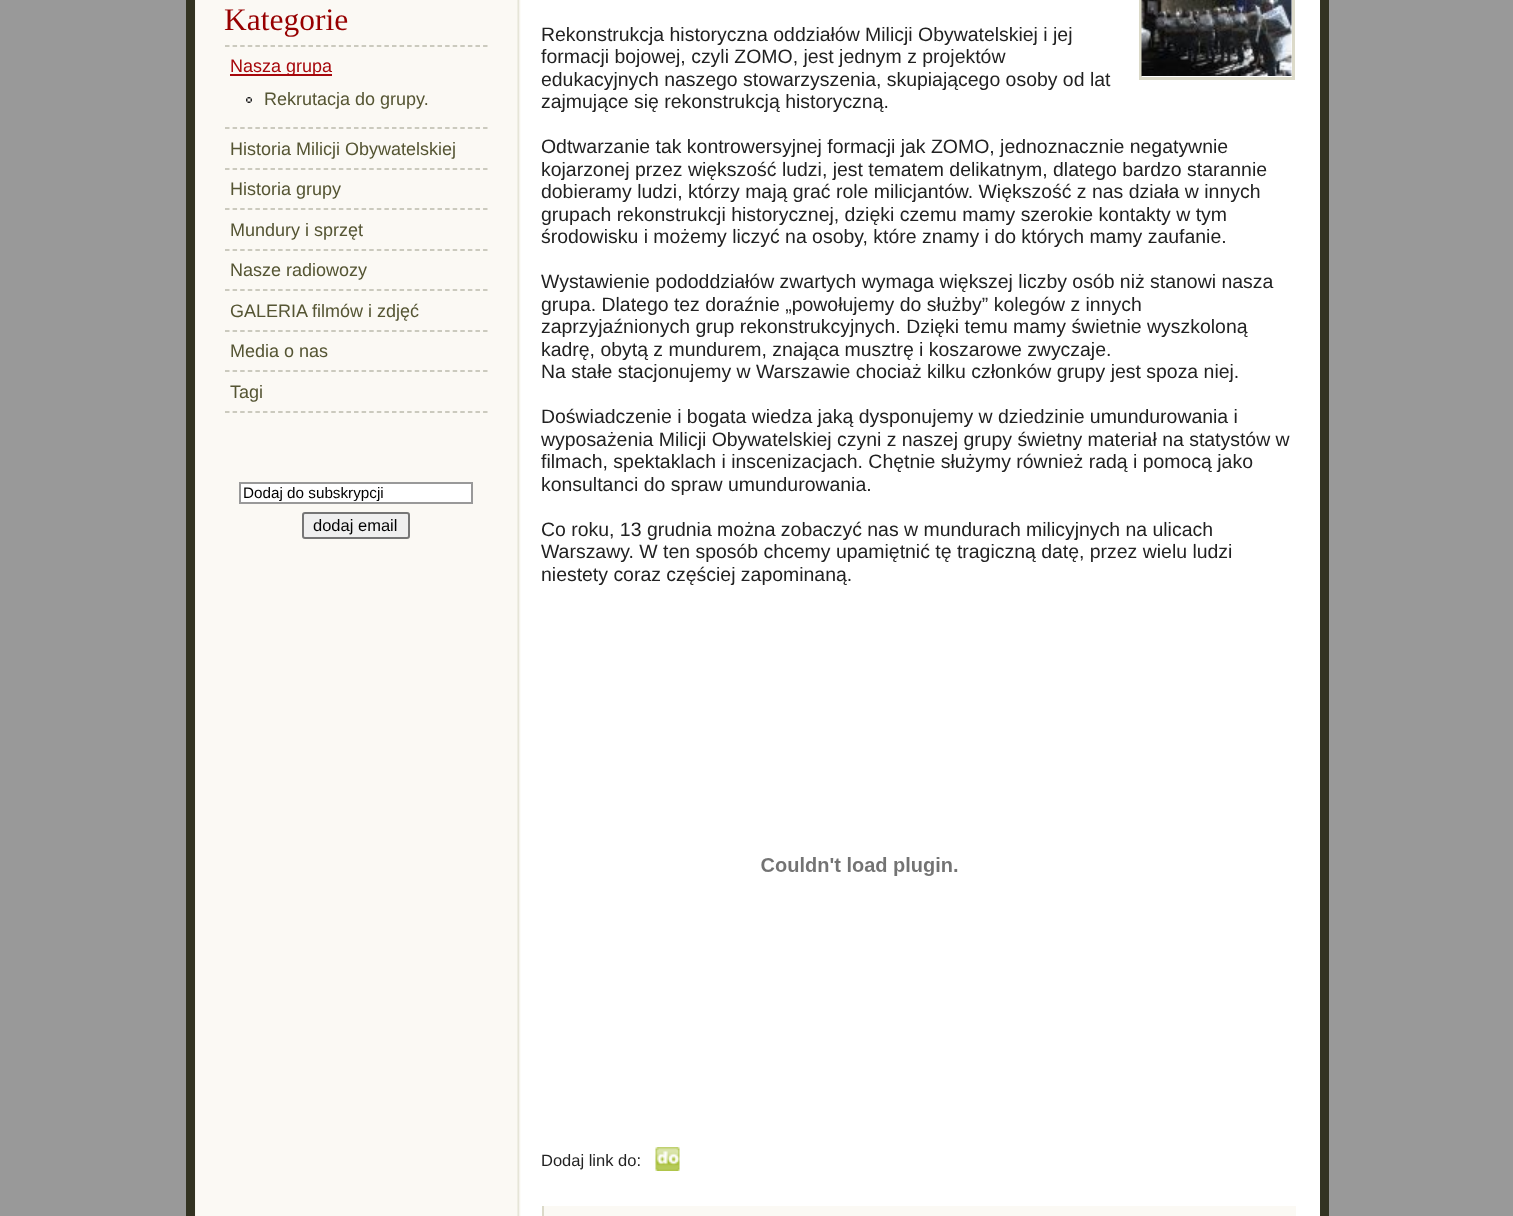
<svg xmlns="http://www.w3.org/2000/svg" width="1513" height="1216">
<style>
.a{font:31.5px Liberation Serif;fill:#970000}
.b{font:18px Liberation Sans;fill:#a7080c}
.c{font:18px Liberation Sans;fill:#553}
.d{font:15.25px Liberation Sans;fill:#000}
.e{font:16.5px Liberation Sans;fill:#000}
.f{font:19.45px Liberation Sans;fill:#222}
.g{font:16.5px Liberation Sans;fill:#222}
</style>
<defs>
<clipPath id="clip1"><path d="M243 485h225v16H243z"/></clipPath>
</defs>
<rect width="100%" height="100%" fill="#999"/>
<path fill="none" stroke="#332" stroke-width="9" d="M190.5 -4.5h1134v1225H190.5z"/>
<path fill="#fff" d="M520 0h800v1216H520z"/>
<image href="1.png" x="195" y="0" width="326" height="1216"/>
<path fill="none" stroke="#bcbaac" stroke-width="1.5" stroke-dasharray="4.5 3.09" d="M225 412h262.5"/>
<path fill="none" stroke="#bcbaac" stroke-width="1.5" stroke-dasharray="4.5 3.09" d="M225 46h262.5"/>
<path fill="#a7080c" d="M230 74h102v2H230z"/>
<image href="2.png" x="246" y="97" width="6" height="6"/>
<path fill="none" stroke="#bcbaac" stroke-width="1.5" stroke-dasharray="4.5 3.09" d="M225 128h262.5"/>
<path fill="none" stroke="#bcbaac" stroke-width="1.5" stroke-dasharray="4.5 3.09" d="M225 169h262.5"/>
<path fill="none" stroke="#bcbaac" stroke-width="1.5" stroke-dasharray="4.5 3.09" d="M225 209h262.5"/>
<path fill="none" stroke="#bcbaac" stroke-width="1.5" stroke-dasharray="4.5 3.09" d="M225 250h262.5"/>
<path fill="none" stroke="#bcbaac" stroke-width="1.5" stroke-dasharray="4.5 3.09" d="M225 290h262.5"/>
<path fill="none" stroke="#bcbaac" stroke-width="1.5" stroke-dasharray="4.5 3.09" d="M225 331h262.5"/>
<path fill="none" stroke="#bcbaac" stroke-width="1.5" stroke-dasharray="4.5 3.09" d="M225 371h262.5"/>
<path fill="#fff" stroke="#999" stroke-width="2" d="M240 483h232v20H240z"/>
<rect fill="#efefef" stroke="#767676" stroke-width="2" x="303" y="513" width="106" height="25" rx="2"/>
<path fill="none" stroke="#dcdac9" stroke-width="3" d="M1140.5 -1.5h153v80H1140.5z"/>
<image href="3.png" x="1141" y="0" width="151" height="76"/>
<image href="4.png" x="761" y="857" width="197" height="19"/>
<image href="5.png" x="655" y="1147" width="25" height="24"/>
<path fill="#fbf9f4" d="M544 1206h752v10H544z"/>
<path fill="#dcdac9" d="M542 1206h2v10H542z"/>
<text class="a" x="224" y="30">Kategorie</text>
<text class="b" x="230" y="72">Nasza grupa</text>
<text class="c" x="264" y="105">Rekrutacja do grupy.</text>
<text class="c" x="230" y="155">Historia Milicji Obywatelskiej</text>
<text class="c" x="230" y="195">Historia grupy</text>
<text class="c" x="230" y="236">Mundury i sprzęt</text>
<text class="c" x="230" y="276">Nasze radiowozy</text>
<text class="c" x="230" y="317">GALERIA filmów i zdjęć</text>
<text class="c" x="230" y="357">Media o nas</text>
<text class="c" x="230" y="398">Tagi</text>
<g clip-path="url(#clip1)">
<text class="d" x="243" y="498">Dodaj do subskrypcji</text>
</g>
<text class="e" x="313" y="531">dodaj email</text>
<text class="f" x="541" y="41">Rekonstrukcja historyczna oddziałów Milicji Obywatelskiej i jej</text>
<text class="f" x="541" y="63">formacji bojowej, czyli ZOMO, jest jednym z projektów</text>
<text class="f" x="541" y="86">edukacyjnych naszego stowarzyszenia, skupiającego osoby od lat</text>
<text class="f" x="541" y="108">zajmujące się rekonstrukcją historyczną.</text>
<text class="f" x="541" y="153">Odtwarzanie tak kontrowersyjnej formacji jak ZOMO, jednoznacznie negatywnie</text>
<text class="f" x="541" y="176">kojarzonej przez większość ludzi, jest tematem delikatnym, dlatego bardzo starannie</text>
<text class="f" x="541" y="198">dobieramy ludzi, którzy mają grać role milicjantów. Większość z nas działa w innych</text>
<text class="f" x="541" y="221">grupach rekonstrukcji historycznej, dzięki czemu mamy szerokie kontakty w tym</text>
<text class="f" x="541" y="243">środowisku i możemy liczyć na osoby, które znamy i do których mamy zaufanie.</text>
<text class="f" x="541" y="288">Wystawienie pododdziałów zwartych wymaga większej liczby osób niż stanowi nasza</text>
<text class="f" x="541" y="311">grupa. Dlatego tez doraźnie „powołujemy do służby” kolegów z innych</text>
<text class="f" x="541" y="333">zaprzyjaźnionych grup rekonstrukcyjnych. Dzięki temu mamy świetnie wyszkoloną</text>
<text class="f" x="541" y="356">kadrę, obytą z mundurem, znająca musztrę i koszarowe zwyczaje.</text>
<text class="f" x="541" y="378">Na stałe stacjonujemy w Warszawie chociaż kilku członków grupy jest spoza niej.</text>
<text class="f" x="541" y="423">Doświadczenie i bogata wiedza jaką dysponujemy w dziedzinie umundurowania i</text>
<text class="f" x="541" y="446">wyposażenia Milicji Obywatelskiej czyni z naszej grupy świetny materiał na statystów w</text>
<text class="f" x="541" y="468">filmach, spektaklach i inscenizacjach. Chętnie służymy również radą i pomocą jako</text>
<text class="f" x="541" y="491">konsultanci do spraw umundurowania.</text>
<text class="f" x="541" y="536">Co roku, 13 grudnia można zobaczyć nas w mundurach milicyjnych na ulicach</text>
<text class="f" x="541" y="558">Warszawy. W ten sposób chcemy upamiętnić tę tragiczną datę, przez wielu ludzi</text>
<text class="f" x="541" y="581">niestety coraz częściej zapominaną.</text>
<text class="g" x="541" y="1166">Dodaj link do:</text>
</svg>
